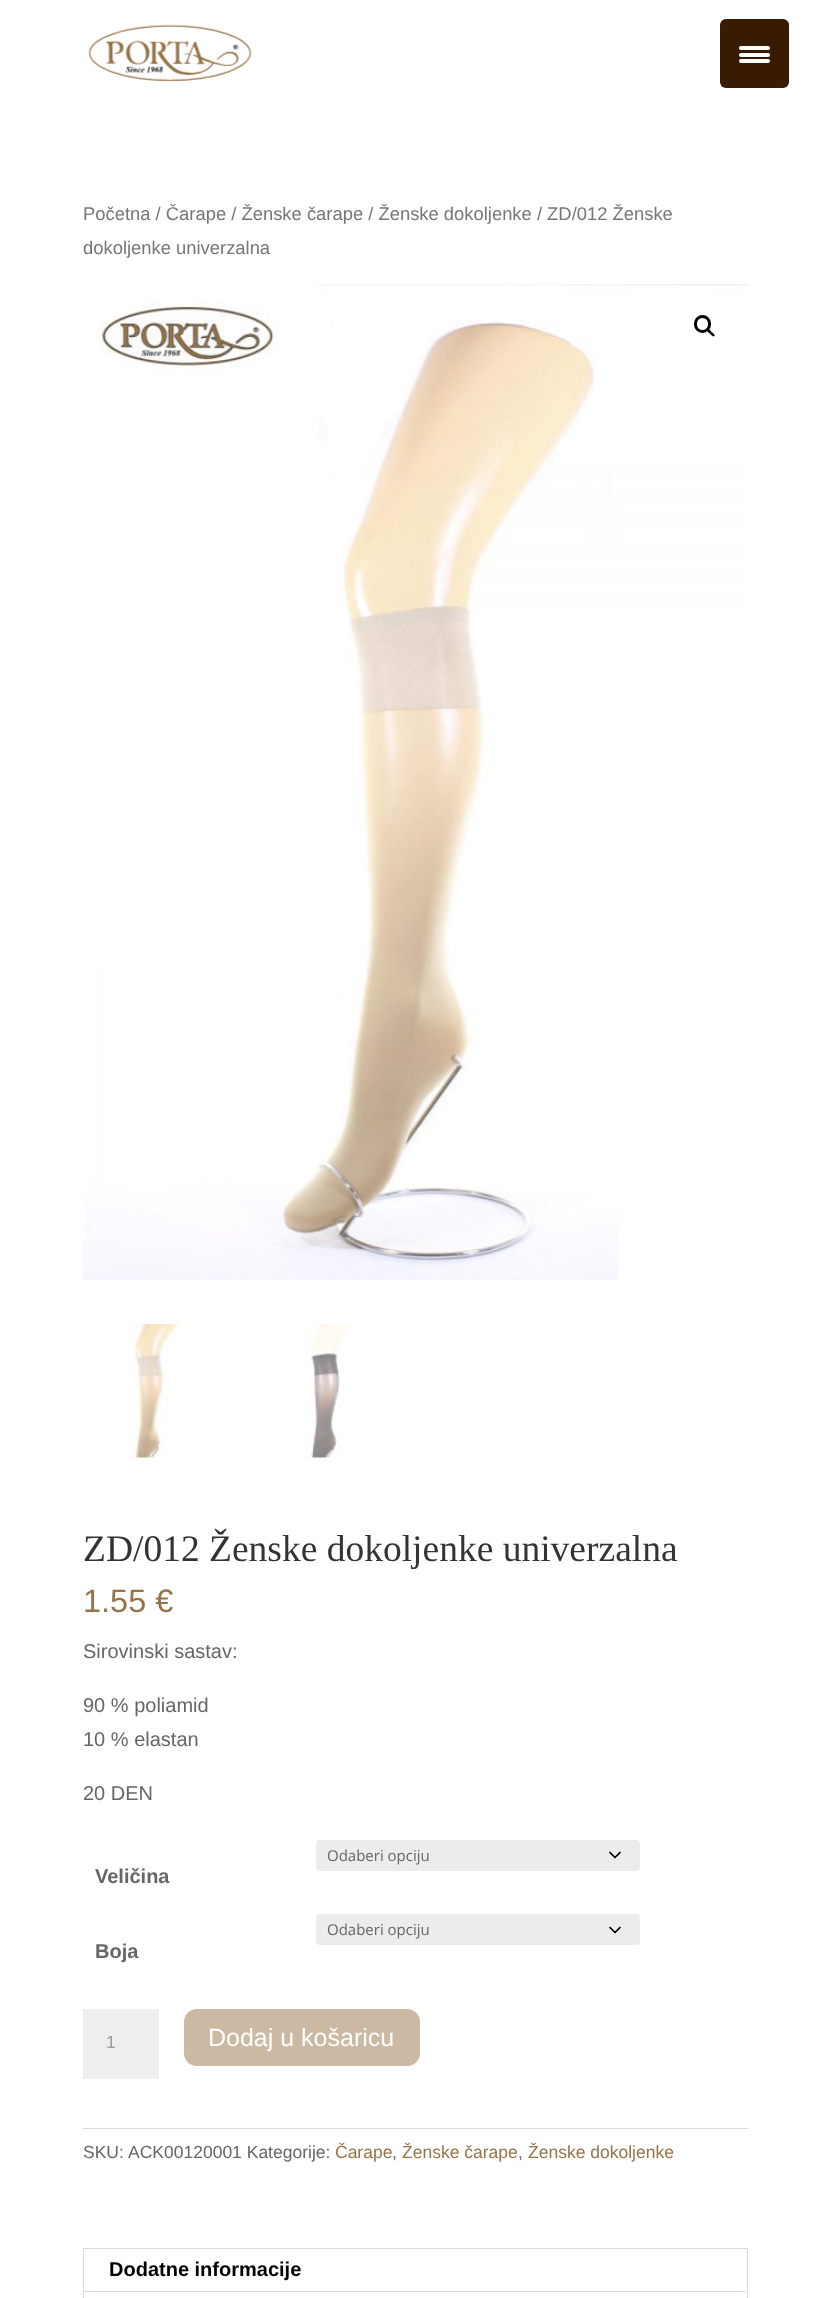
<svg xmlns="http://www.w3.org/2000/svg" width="829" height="2298">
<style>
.a{font:18.4px Liberation Sans;fill:#767676}
.b{font:37.5px Liberation Serif;fill:#333}
.c{font:32.5px Liberation Sans;fill:#977348}
.d{font:20px Liberation Sans;fill:#666}
.e{font:15px Open Sans;fill:#666}
.f{font:bold 20px Liberation Sans;fill:#666}
.g{font:17.5px Liberation Sans;fill:#999}
.h{font:25px Liberation Sans;fill:#fff}
.i{font:17.5px Liberation Sans;fill:#666}
.j{font:17.5px Liberation Sans;fill:#977348}
.k{font:bold 20px Liberation Sans;fill:#000}
</style>
<rect width="100%" height="100%" fill="#fff"/>
<rect fill="#381b00" x="720" y="19" width="69" height="69" rx="6"/>
<rect fill="#fff" x="739" y="53" width="31" height="4" rx="2"/>
<rect fill="#fff" x="739" y="46" width="31" height="4" rx="2"/>
<rect fill="#fff" x="739" y="59" width="31" height="4" rx="2"/>
<image href="1.png" x="88" y="24" width="164" height="58"/>
<image href="2.png" x="83" y="284" width="665" height="996"/>
<rect fill="none" stroke="#000" stroke-width="3" x="695.5" y="316.5" width="14" height="15" rx="7"/>
<path fill="#000" d="M707 329c1.5-1.5 4 2 4.5 3c1 .5 4 3 3 4c-1.5 1.5-4-1.5-4.5-2.5c-1-.5-4-3-3-4.5z"/>
<image href="3.png" x="130" y="1323" width="49" height="135"/>
<image href="4.png" x="304" y="1324" width="49" height="134"/>
<rect fill="#ececec" x="316" y="1840" width="324" height="31" rx="4"/>
<path fill="none" stroke="#000" stroke-width="1.7" stroke-linecap="round" stroke-linejoin="round" d="M610 1852.5l5 5l5-5"/>
<rect fill="#ececec" x="316" y="1914" width="324" height="31" rx="4"/>
<path fill="none" stroke="#000" stroke-width="1.7" stroke-linecap="round" stroke-linejoin="round" d="M610 1927.5l5 5l5-5"/>
<path fill="#eee" d="M83 2009h76v70H83z"/>
<rect fill="#cbb9a4" x="184" y="2009" width="236" height="57" rx="13"/>
<path fill="#dadada" d="M83 2128h665v1H83z"/>
<path fill="none" stroke="#d9d9d9" d="M83.5 2248.5h664v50H83.5z"/>
<path fill="#e0dadf" d="M84 2291h662v1H84z"/>
<text class="a" x="83" y="220">Početna / Čarape / Ženske čarape / Ženske dokoljenke / ZD/012 Ženske</text>
<text class="a" x="83" y="254">dokoljenke univerzalna</text>
<text class="b" x="83" y="1561">ZD/012 Ženske dokoljenke univerzalna</text>
<text class="c" x="83" y="1612">1.55 €</text>
<text class="d" x="83" y="1658">Sirovinski sastav:</text>
<text class="d" x="83" y="1712">90 % poliamid</text>
<text class="d" x="83" y="1746">10 % elastan</text>
<text class="d" x="83" y="1800">20 DEN</text>
<text class="e" x="327" y="1861">Odaberi opciju</text>
<text class="f" x="95" y="1883">Veličina</text>
<text class="e" x="327" y="1935">Odaberi opciju</text>
<text class="f" x="95" y="1958">Boja</text>
<text class="g" x="106" y="2048">1</text>
<text class="h" x="208" y="2046">Dodaj u košaricu</text>
<text class="i" x="83" y="2158">SKU:</text>
<text class="i" x="128" y="2158">ACK00120001 Kategorije:</text>
<text class="j" x="335" y="2158">Čarape</text>
<text class="i" x="392" y="2158">,</text>
<text class="j" x="402" y="2158">Ženske čarape</text>
<text class="i" x="518" y="2158">,</text>
<text class="j" x="528" y="2158">Ženske dokoljenke</text>
<text class="k" x="109" y="2276">Dodatne informacije</text>
</svg>
